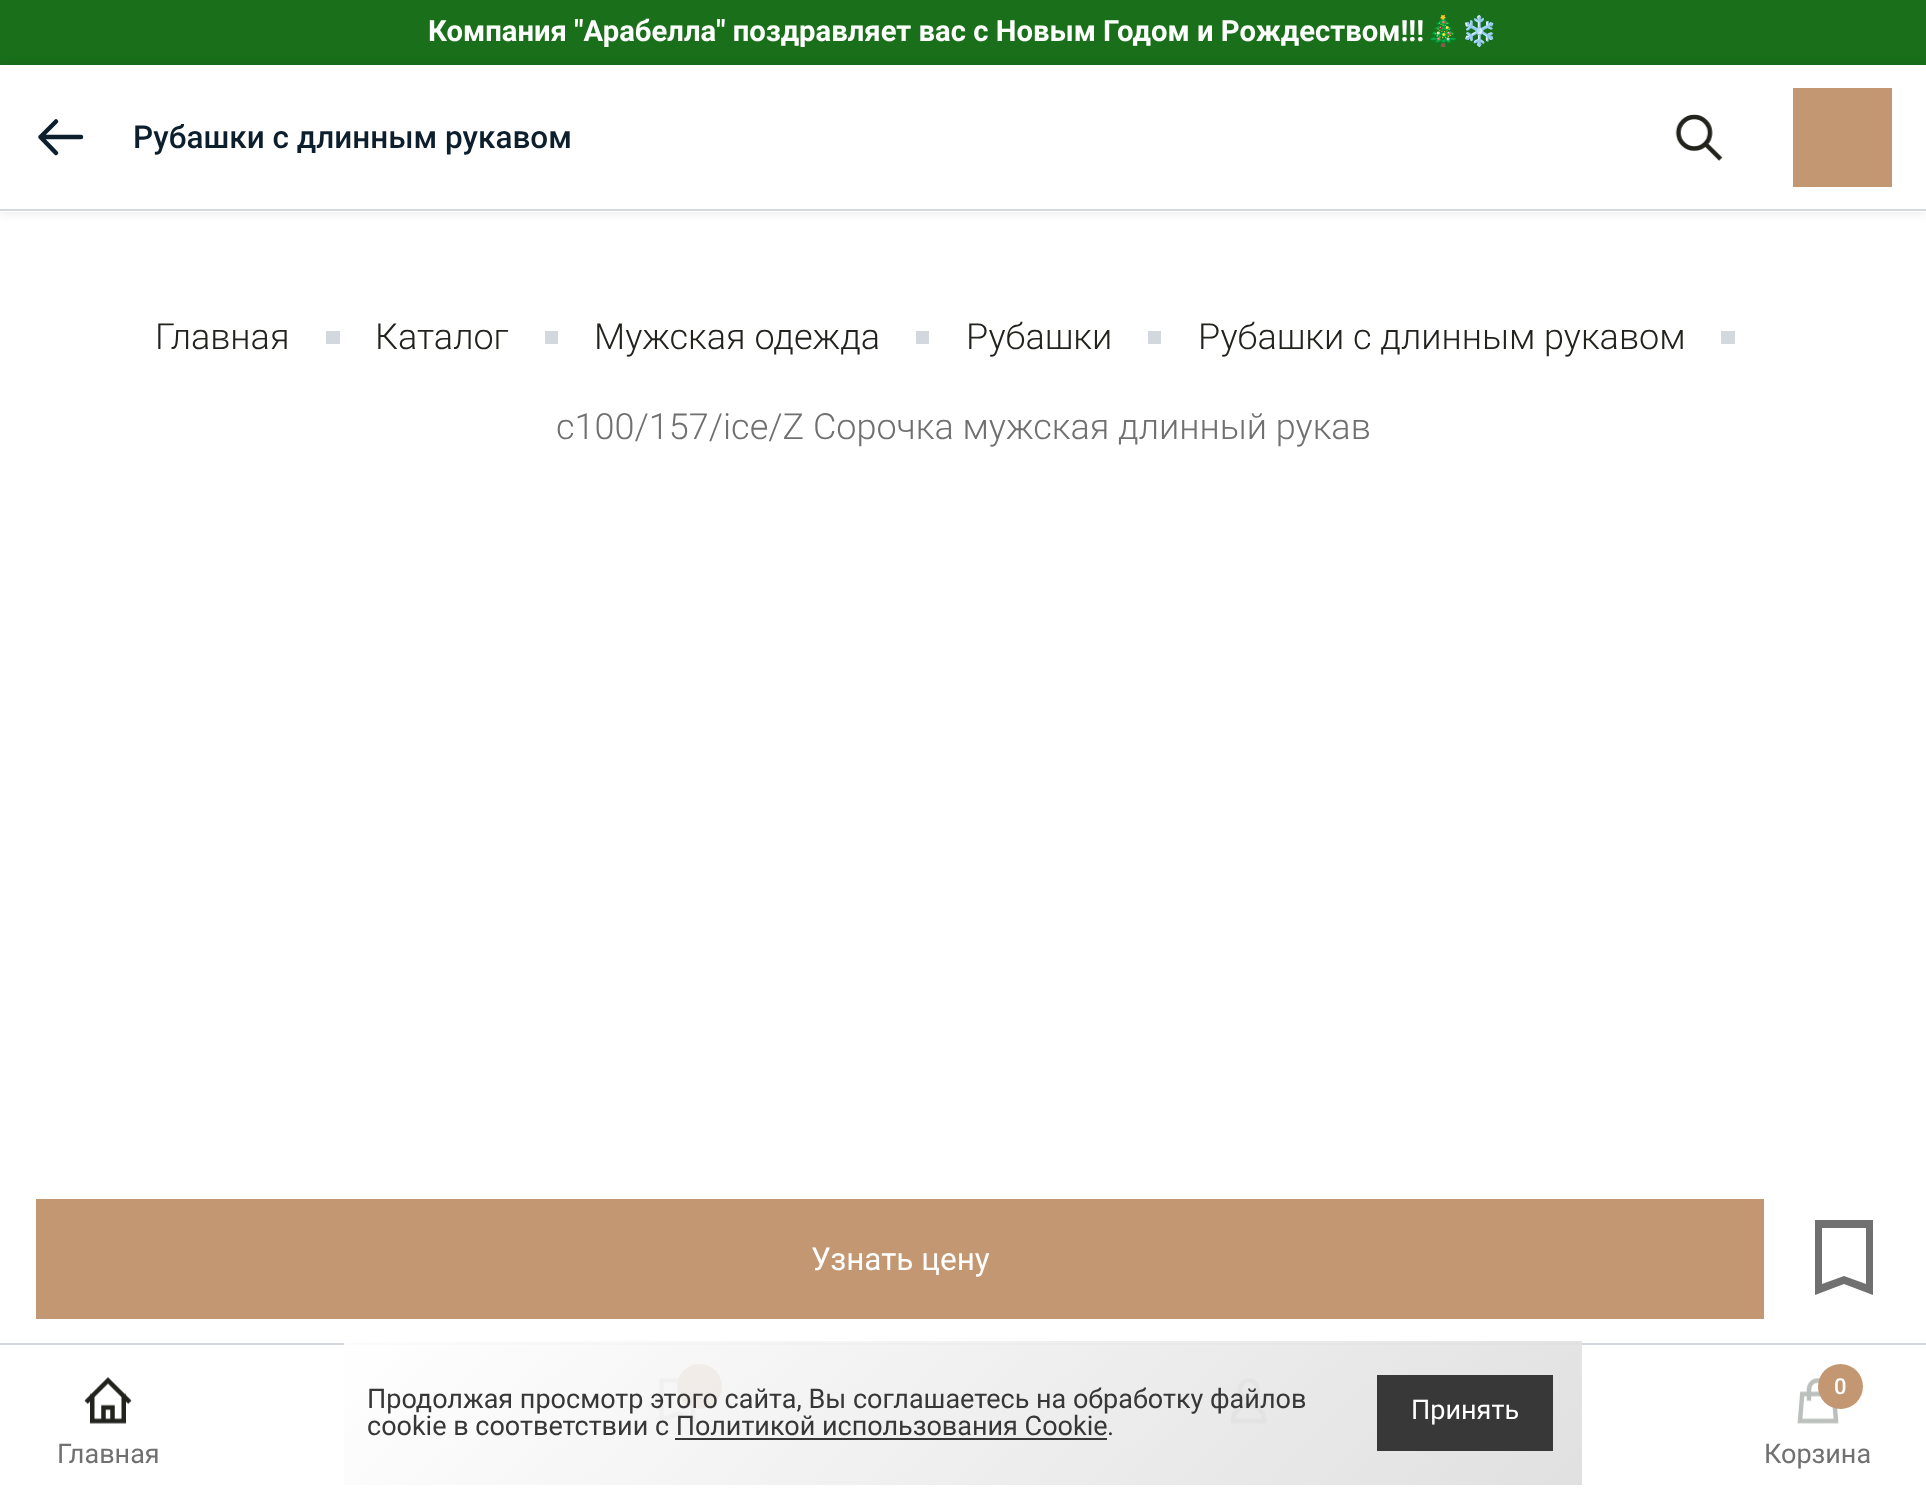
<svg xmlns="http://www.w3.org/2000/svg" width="1926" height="1498">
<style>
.a{font:bold 29.25px Roboto;fill:#fff}
.b{font:bold 29.25px Noto Color Emoji;fill:#fff}
.c{font:500 31.5px Roboto;fill:#0d1f2d}
.d{font:300 36px Roboto;fill:#22231d}
.e{font:300 36px Roboto;fill:#707070}
.f{font:31.5px Roboto;fill:#fff}
.g{font:27px Roboto;fill:#707070}
.h{font:500 22px Roboto;fill:#fff}
.i{font:27px Roboto;fill:#373737}
.j{font:27px Roboto;fill:#fff}
</style>
<defs>
<linearGradient id="g1" gradientUnits="userSpaceOnUse" x1="639" y1="1065" x2="1287" y2="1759"><stop offset="0" stop-color="#fff" stop-opacity="0.9"/><stop offset="1" stop-color="#ddd" stop-opacity="0.9"/></linearGradient>
</defs>
<rect width="100%" height="100%" fill="#fff"/>
<path fill="#1a701a" d="M0 0h1926v65H0z"/>
<path fill="#0000001a" filter="blur(5.5px)" d="M0 65h1926v147H0z"/>
<path fill="#fff" d="M0 65h1926v147H0z"/>
<path fill="#d3d8df" d="M0 209h1926v2H0z"/>
<path fill="none" stroke="#0d1f2d" stroke-width="4.5" stroke-linecap="round" stroke-linejoin="round" d="M56 153l-15.5-16m0 0l15.5-15.5m-15.5 15.5h40.5"/>
<image href="1.png" x="1675" y="114" width="48" height="47"/>
<path fill="#c29771" d="M1793 88h99v99H1793z"/>
<path fill="#d3d8df" d="M326 331h14v13H326z"/>
<path fill="#d3d8df" d="M545 331h13v13H545z"/>
<path fill="#d3d8df" d="M916 331h13v13H916z"/>
<path fill="#d3d8df" d="M1148 331h13v13H1148z"/>
<path fill="#d3d8df" d="M1721 331h14v13H1721z"/>
<path fill="#c29771" d="M36 1199h1728v120H36z"/>
<path fill="#707070" d="M1815 1220v75l29-11l29 11v-75zm7 8h44v56l-22-8l-22 8z"/>
<path fill="#d3d8df" d="M0 1343h1926v2H0z"/>
<image href="2.png" x="84" y="1377" width="48" height="47"/>
<image href="3.png" x="659" y="1377" width="37" height="47"/>
<circle fill="#c29771" cx="699.5" cy="1386.5" r="22.5"/>
<image href="4.png" x="1230" y="1377" width="37" height="47"/>
<image href="5.png" x="1797" y="1377" width="42" height="47"/>
<circle fill="#c29771" cx="1840.5" cy="1386.5" r="22.5"/>
<path fill="url(#g1)" d="M344 1341h1238v144H344z"/>
<path fill="#383838" d="M675 1438h432v2H675z"/>
<path fill="#383838" d="M1377 1375h176v76H1377z"/>
<text class="a" x="428" y="41">Компания "Арабелла" поздравляет вас с Новым Годом и Рождеством!!!</text>
<text class="b" x="1425" y="41">🎄❄️</text>
<text class="c" x="133" y="148">Рубашки с длинным рукавом</text>
<text class="d" x="155" y="349">Главная</text>
<text class="d" x="375" y="349">Каталог</text>
<text class="d" x="594" y="349">Мужская одежда</text>
<text class="d" x="966" y="349">Рубашки</text>
<text class="d" x="1198" y="349">Рубашки с длинным рукавом</text>
<text class="e" x="556" y="439">c100/157/ice/Z Сорочка мужская длинный рукав</text>
<text class="f" x="811" y="1270">Узнать цену</text>
<text class="g" x="57" y="1463">Главная</text>
<text class="h" x="1834" y="1394">0</text>
<text class="g" x="1764" y="1463">Корзина</text>
<text class="i" x="367" y="1408">Продолжая просмотр этого сайта, Вы соглашаетесь на обработку файлов</text>
<text class="i" x="367" y="1435">cookie в соответствии с Политикой использования Cookie</text>
<text class="i" x="1107" y="1435">.</text>
<text class="j" x="1411" y="1419">Принять</text>
</svg>
